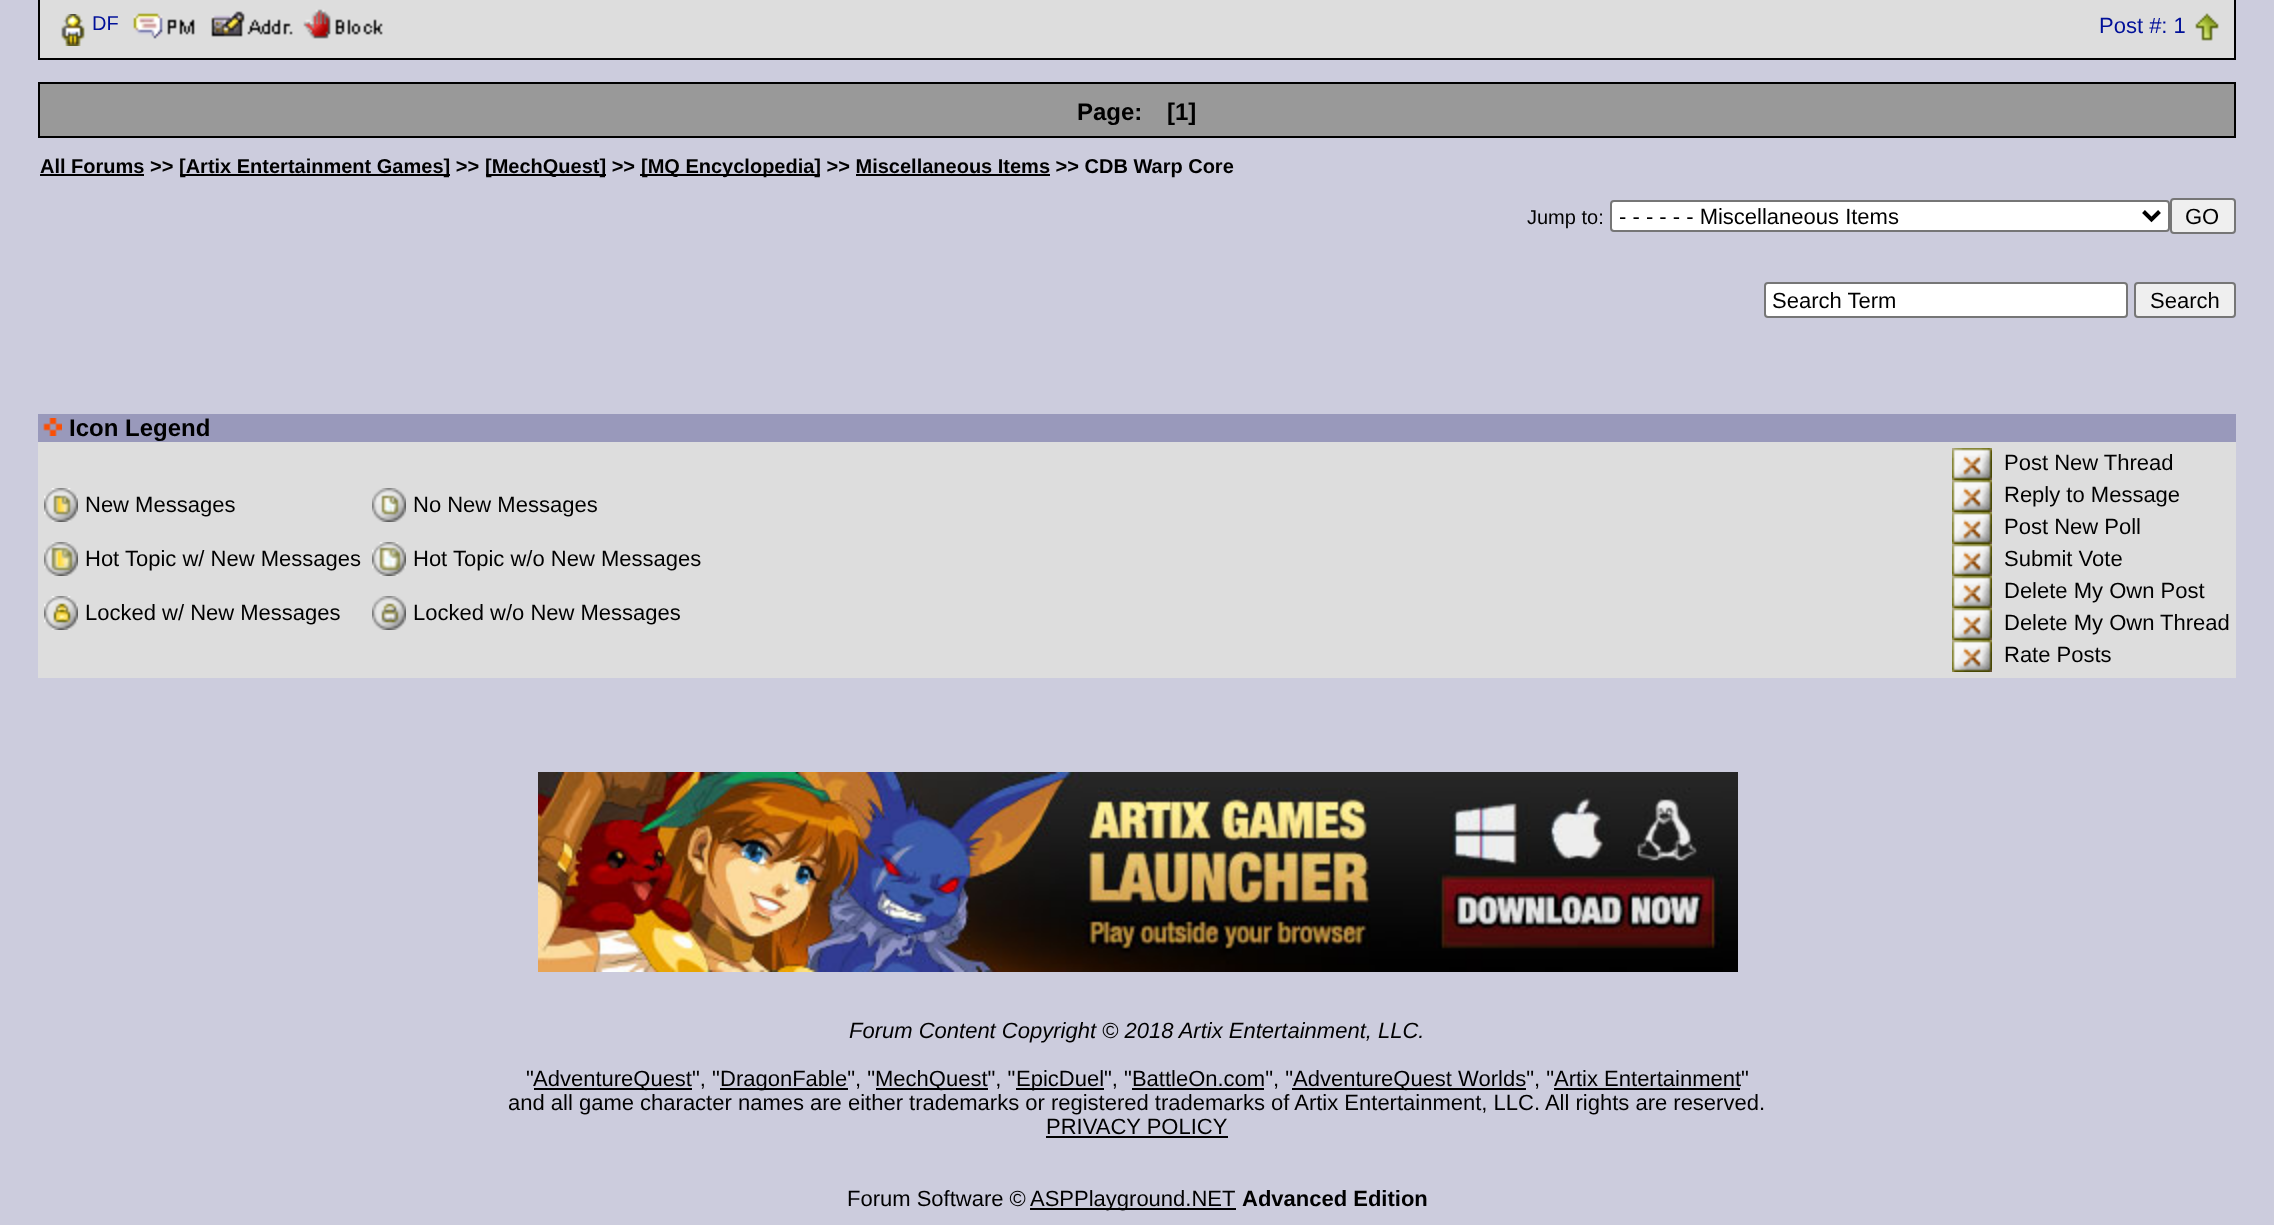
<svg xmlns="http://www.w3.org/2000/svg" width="2274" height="1225">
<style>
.a{font:20px Liberation Sans;fill:#001099}
.b{font:22px Liberation Sans;fill:#001099}
.c{font:bold 24px Liberation Sans;fill:#000}
.d{font:bold 20px Liberation Sans;fill:#000}
.e{font:20px Liberation Sans;fill:#000}
.f{font:22px Liberation Sans;fill:#000}
.g{font:italic 22px Liberation Sans;fill:#000}
.h{font:bold 22px Liberation Sans;fill:#000}
</style>
<rect width="100%" height="100%" fill="#ccd"/>
<path fill="#000" d="M38 0h2198v60H38z"/>
<path fill="#ddd" d="M40 0h2194v58H40z"/>
<image href="1.png" x="61" y="14" width="24" height="32"/>
<image href="2.png" x="133" y="13" width="62" height="26"/>
<image href="3.png" x="211" y="11" width="82" height="26"/>
<image href="4.png" x="303" y="9" width="80" height="30"/>
<image href="5.png" x="2195" y="13" width="24" height="28"/>
<path fill="#000" d="M38 82h2198v56H38z"/>
<path fill="#999" d="M40 84h2194v52H40z"/>
<path fill="#000" d="M40 174h104v2H40z"/>
<path fill="#000" d="M180 174h270v2H180z"/>
<path fill="#000" d="M486 174h120v2H486z"/>
<path fill="#000" d="M640 174h180v2H640z"/>
<path fill="#000" d="M856 174h194v2H856z"/>
<rect fill="#fff" stroke="#767676" stroke-width="2" x="1611" y="201" width="558" height="30" rx="3"/>
<path fill="none" stroke="#000" stroke-width="4" d="M2143.5 211.5l8 8l8-8"/>
<rect fill="#efefef" stroke="#767676" stroke-width="2" x="2171" y="199" width="64" height="34" rx="3"/>
<rect fill="#fff" stroke="#767676" stroke-width="2" x="1765" y="283" width="362" height="34" rx="3"/>
<rect fill="#efefef" stroke="#767676" stroke-width="2" x="2135" y="283" width="100" height="34" rx="3"/>
<path fill="#99b" d="M38 414h2198v28H38z"/>
<image href="6.png" x="43" y="418" width="19" height="18"/>
<path fill="#ddd" d="M38 442h2198v236H38z"/>
<image href="7.png" x="44" y="488" width="34" height="34"/>
<image href="8.png" x="372" y="488" width="34" height="34"/>
<image href="9.png" x="44" y="542" width="34" height="34"/>
<image href="10.png" x="372" y="542" width="34" height="34"/>
<image href="11.png" x="44" y="596" width="34" height="34"/>
<image href="12.png" x="372" y="596" width="34" height="34"/>
<image href="13.png" x="1952" y="448" width="40" height="32"/>
<image href="13.png" x="1952" y="480" width="40" height="32"/>
<image href="13.png" x="1952" y="512" width="40" height="32"/>
<image href="13.png" x="1952" y="544" width="40" height="32"/>
<image href="13.png" x="1952" y="576" width="40" height="32"/>
<image href="13.png" x="1952" y="608" width="40" height="32"/>
<image href="13.png" x="1952" y="640" width="40" height="32"/>
<image href="14.png" x="538" y="772" width="1200" height="200"/>
<path fill="#000" d="M534 1088h158v2H534z"/>
<path fill="#000" d="M720 1088h128v2H720z"/>
<path fill="#000" d="M876 1088h112v2H876z"/>
<path fill="#000" d="M1016 1088h88v2H1016z"/>
<path fill="#000" d="M1292 1088h234v2H1292z"/>
<path fill="#000" d="M1132 1088h132v2H1132z"/>
<path fill="#000" d="M1554 1088h186v2H1554z"/>
<path fill="#000" d="M1046 1136h182v2H1046z"/>
<path fill="#000" d="M1030 1208h206v2H1030z"/>
<text class="a" x="92" y="30">DF</text>
<text class="b" x="2099" y="33">Post #: 1</text>
<text class="c" x="1077" y="120">Page:</text>
<text class="c" x="1167" y="120">[1]</text>
<text class="d" x="40" y="173">All Forums &gt;&gt;</text>
<text class="d" x="179" y="173">[Artix Entertainment Games] &gt;&gt;</text>
<text class="d" x="485" y="173">[MechQuest] &gt;&gt;</text>
<text class="d" x="641" y="173">[MQ Encyclopedia] &gt;&gt; Miscellaneous Items &gt;&gt; CDB Warp Core</text>
<text class="e" x="1527" y="224">Jump to:</text>
<text class="f" x="1619" y="224">- - - - - - Miscellaneous Items</text>
<text class="f" x="2185" y="224">GO</text>
<text class="f" x="1772" y="308">Search Term</text>
<text class="f" x="2150" y="308">Search</text>
<text class="c" x="69" y="436">Icon Legend</text>
<text class="f" x="85" y="512">New Messages</text>
<text class="f" x="413" y="512">No New Messages</text>
<text class="f" x="85" y="566">Hot Topic w/ New Messages</text>
<text class="f" x="413" y="566">Hot Topic w/o New Messages</text>
<text class="f" x="85" y="620">Locked w/ New Messages</text>
<text class="f" x="413" y="620">Locked w/o New Messages</text>
<text class="f" x="2004" y="470">Post New Thread</text>
<text class="f" x="2004" y="502">Reply to Message</text>
<text class="f" x="2004" y="534">Post New Poll</text>
<text class="f" x="2004" y="566">Submit Vote</text>
<text class="f" x="2004" y="598">Delete My Own Post</text>
<text class="f" x="2004" y="630">Delete My Own Thread</text>
<text class="f" x="2004" y="662">Rate Posts</text>
<text class="g" x="849" y="1038">Forum Content Copyright © 2018 Artix Entertainment, LLC.</text>
<text class="f" x="526" y="1086">"</text>
<text class="f" x="533" y="1086">AdventureQuest", "</text>
<text class="f" x="720" y="1086">DragonFable", "</text>
<text class="f" x="875" y="1086">MechQuest", "</text>
<text class="f" x="1016" y="1086">EpicDuel", "BattleOn.com", "</text>
<text class="f" x="1293" y="1086">AdventureQuest Worlds", "Artix Entertainment"</text>
<text class="f" x="508" y="1110">and all game character names are either trademarks or registered trademarks of Artix Entertainment, LLC. All rights are reserved.</text>
<text class="f" x="1046" y="1134">PRIVACY POLICY</text>
<text class="f" x="847" y="1206">Forum Software ©</text>
<text class="f" x="1030" y="1206">ASPPlayground.NET</text>
<text class="h" x="1242" y="1206">Advanced Edition</text>
</svg>
